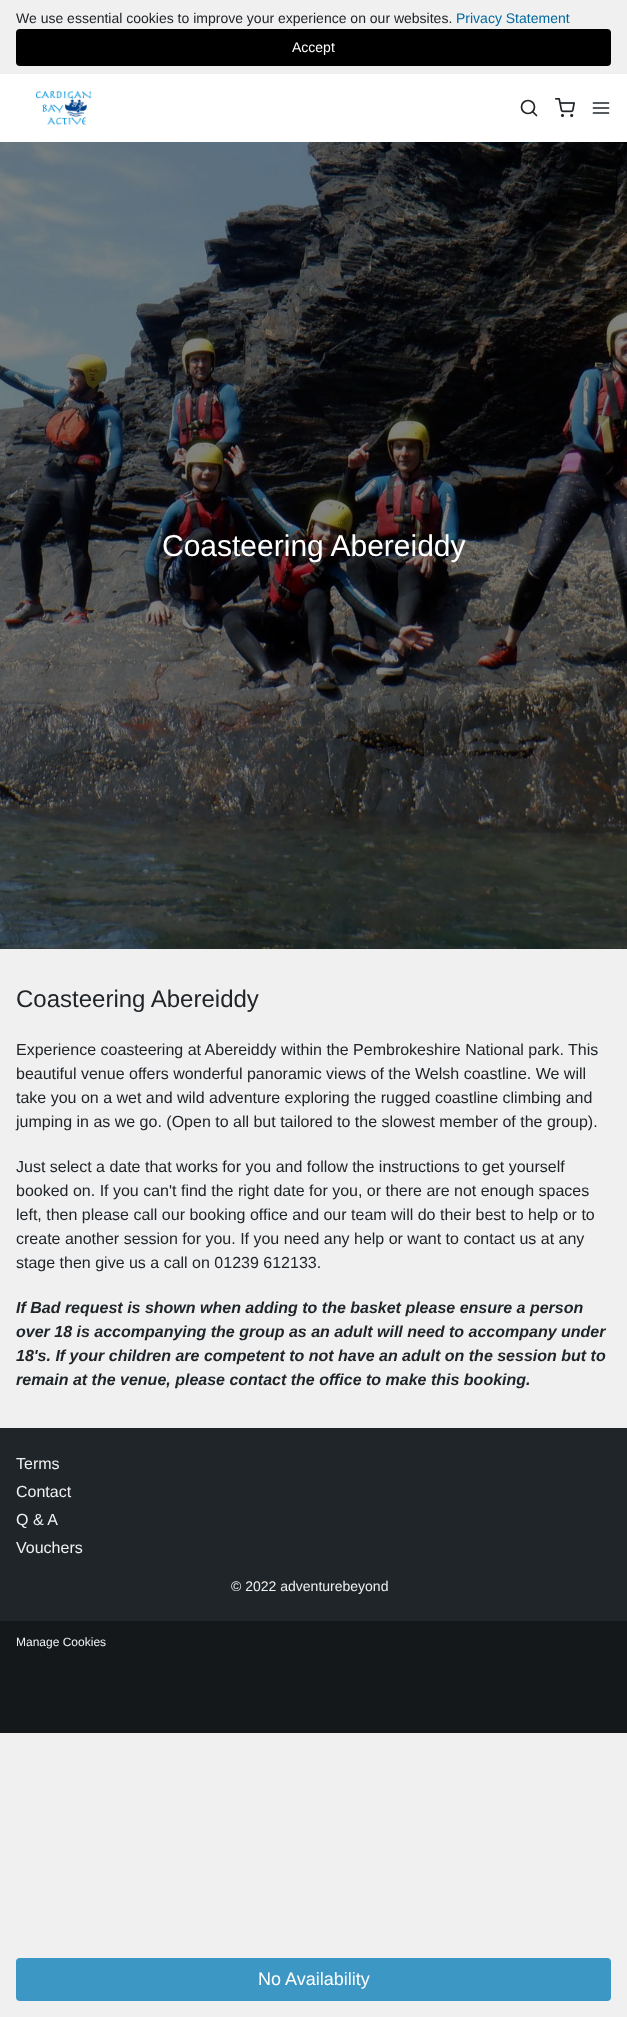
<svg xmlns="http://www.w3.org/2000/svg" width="627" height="2017">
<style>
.a{font:14px Liberation Sans;fill:#202529}
.b{font:14px Liberation Sans;fill:#00689e}
.c{font:14px Liberation Sans;fill:#fff}
.d{font:30px Liberation Sans;fill:#fff}
.e{font:24px Liberation Sans;fill:#202529}
.f{font:16px Liberation Sans;fill:#202529}
.g{font:italic bold 16px Liberation Sans;fill:#202529}
.h{font:18px Liberation Sans;fill:#fff}
.i{font:16px Liberation Sans;fill:#f0f0f0}
.j{font:14px Liberation Sans;fill:#f0f0f0}
.k{font:12px Liberation Sans;fill:#f0f0f0}
</style>
<rect width="100%" height="100%" fill="#f0f0f0"/>
<rect fill="#000" x="16" y="29" width="595" height="37" rx="4"/>
<path fill="#fff" d="M0 74h627v68H0z"/>
<image href="1.png" x="35" y="91" width="57" height="35"/>
<circle fill="none" stroke="#202529" stroke-width="1.7" cx="528" cy="107" r="6.5"/>
<path fill="none" stroke="#202529" stroke-width="1.7" stroke-linecap="round" stroke-linejoin="round" d="M536.5 115.5l-3.5-3.5"/>
<image href="2.png" x="555" y="98" width="20" height="20"/>
<path fill="none" stroke="#202529" stroke-width="1.7" stroke-linecap="round" stroke-linejoin="round" d="M593.5 108h15m-15-5h15m-15 10h15"/>
<image href="3.png" x="0" y="142" width="627" height="807"/>
<rect fill="#3c97c5" x="16" y="1958" width="595" height="43" rx="4"/>
<path fill="#202529" d="M0 1428h627v193H0z"/>
<path fill="#15181b" d="M0 1621h627v112H0z"/>
<text class="a" x="16" y="23">We use essential cookies to improve your experience on our websites.</text>
<text class="b" x="456" y="23">Privacy Statement</text>
<text class="c" x="292" y="52">Accept</text>
<text class="d" x="162" y="556">Coasteering Abereiddy</text>
<text class="e" x="16" y="1007">Coasteering Abereiddy</text>
<text class="f" x="16" y="1055">Experience coasteering at Abereiddy within the Pembrokeshire National park. This</text>
<text class="f" x="16" y="1079">beautiful venue offers wonderful panoramic views of the Welsh coastline. We will</text>
<text class="f" x="16" y="1103">take you on a wet and wild adventure exploring the rugged coastline climbing and</text>
<text class="f" x="16" y="1127">jumping in as we go. (Open to all but tailored to the slowest member of the group).</text>
<text class="f" x="16" y="1172">Just select a date that works for you and follow the instructions to get yourself</text>
<text class="f" x="16" y="1196">booked on. If you can't find the right date for you, or there are not enough spaces</text>
<text class="f" x="16" y="1220">left, then please call our booking office and our team will do their best to help or to</text>
<text class="f" x="16" y="1244">create another session for you. If you need any help or want to contact us at any</text>
<text class="f" x="16" y="1268">stage then give us a call on 01239 612133.</text>
<text class="g" x="16" y="1313">If Bad request is shown when adding to the basket please ensure a person</text>
<text class="g" x="16" y="1337">over 18 is accompanying the group as an adult will need to accompany under</text>
<text class="g" x="16" y="1361">18's. If your children are competent to not have an adult on the session but to</text>
<text class="g" x="16" y="1385">remain at the venue, please contact the office to make this booking.</text>
<text class="h" x="258" y="1985">No Availability</text>
<text class="i" x="16" y="1469">Terms</text>
<text class="i" x="16" y="1497">Contact</text>
<text class="i" x="16" y="1525">Q &amp; A</text>
<text class="i" x="16" y="1553">Vouchers</text>
<text class="j" x="231" y="1591">© 2022 adventurebeyond</text>
<text class="k" x="16" y="1646">Manage Cookies</text>
</svg>
